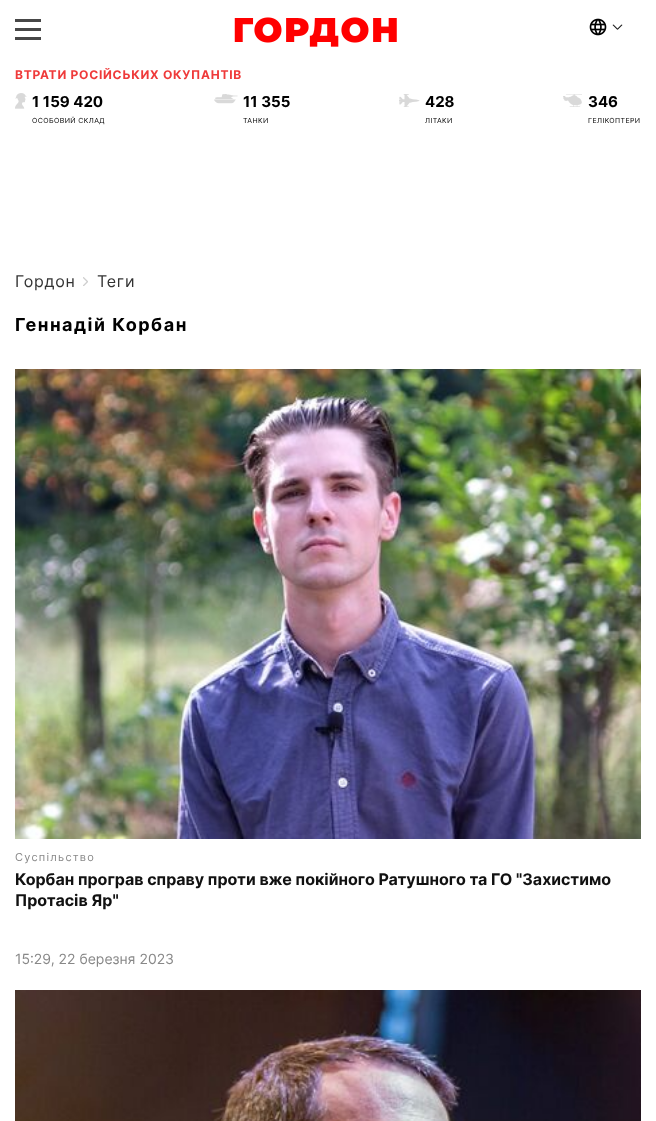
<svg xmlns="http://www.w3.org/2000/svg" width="656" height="1121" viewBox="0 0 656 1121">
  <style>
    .t1 { font: bold 12px Inter; letter-spacing: 0.75px; fill: #ef3a3a; }
    .t2 { font: bold 15px Inter; fill: #000; }
    .t3 { font: 7px Inter; letter-spacing: 0.4px; fill: #000; }
    .t4 { font: 16px Inter; letter-spacing: 0.75px; fill: #333; }
    .t5 { font: bold 18px Inter; letter-spacing: 1.5px; fill: #000; }
    .t6 { font: 11px Inter; letter-spacing: 1.25px; fill: #888; }
    .t7 { font: bold 16px Inter; fill: #111; }
    .t8 { font: 14px Inter; fill: #888; }
  </style>
  <rect width="100%" height="100%" fill="#fff"/>
  <rect x="15" y="19" width="26" height="3" fill="#474747"/>
  <rect x="15" y="28" width="26" height="3" fill="#474747"/>
  <rect x="15" y="37" width="26" height="3" fill="#474747"/>
  <image x="234" y="17" width="163" height="30" href="images/1.png"/>
  <image x="589" y="18" width="18" height="18" href="images/2.png"/>
  <path d="M622.5 25L617.5 30V28.5L621.5 24.5Z" fill="#1a1a1a"/>
  <path d="M617.5 30L612.5 25L613.5 24.5L617.5 28.5Z" fill="#1a1a1a"/>
  <text x="15" y="79" class="t1">ВТРАТИ РОСІЙСЬКИХ ОКУПАНТІВ</text>
  <image x="15" y="93" width="12" height="16" href="images/3.png"/>
  <text x="32" y="107" class="t2">1 159 420</text>
  <text x="32" y="123" class="t3">ОСОБОВИЙ СКЛАД</text>
  <image x="214" y="94" width="24" height="10" href="images/4.png"/>
  <text x="243" y="107" class="t2">11 355</text>
  <text x="243" y="123" class="t3">ТАНКИ</text>
  <image x="399" y="94" width="21" height="13" href="images/5.png"/>
  <text x="425" y="107" class="t2">428</text>
  <text x="425" y="123" class="t3">ЛІТАКИ</text>
  <image x="563" y="94" width="19" height="13" href="images/6.png"/>
  <text x="588" y="107" class="t2">346</text>
  <text x="588" y="123" class="t3">ГЕЛІКОПТЕРИ</text>
  <text x="15" y="287" class="t4">Гордон</text>
  <image x="83" y="277" width="5" height="9" href="images/7.png"/>
  <text x="97" y="287" class="t4">Теги</text>
  <text x="15" y="331" class="t5">Геннадій Корбан</text>
  <image x="15" y="369" width="626" height="470" href="images/8.png"/>
  <text x="15" y="861" class="t6">Суспільство</text>
  <text x="15" y="885" class="t7">Корбан програв справу проти вже покійного Ратушного та ГО "Захистимо</text>
  <text x="15" y="906" class="t7">Протасів Яр"</text>
  <text x="15" y="964" class="t8">15:29, 22 березня 2023</text>
  <image x="15" y="990" width="626" height="131" href="images/9.png"/>
</svg>
